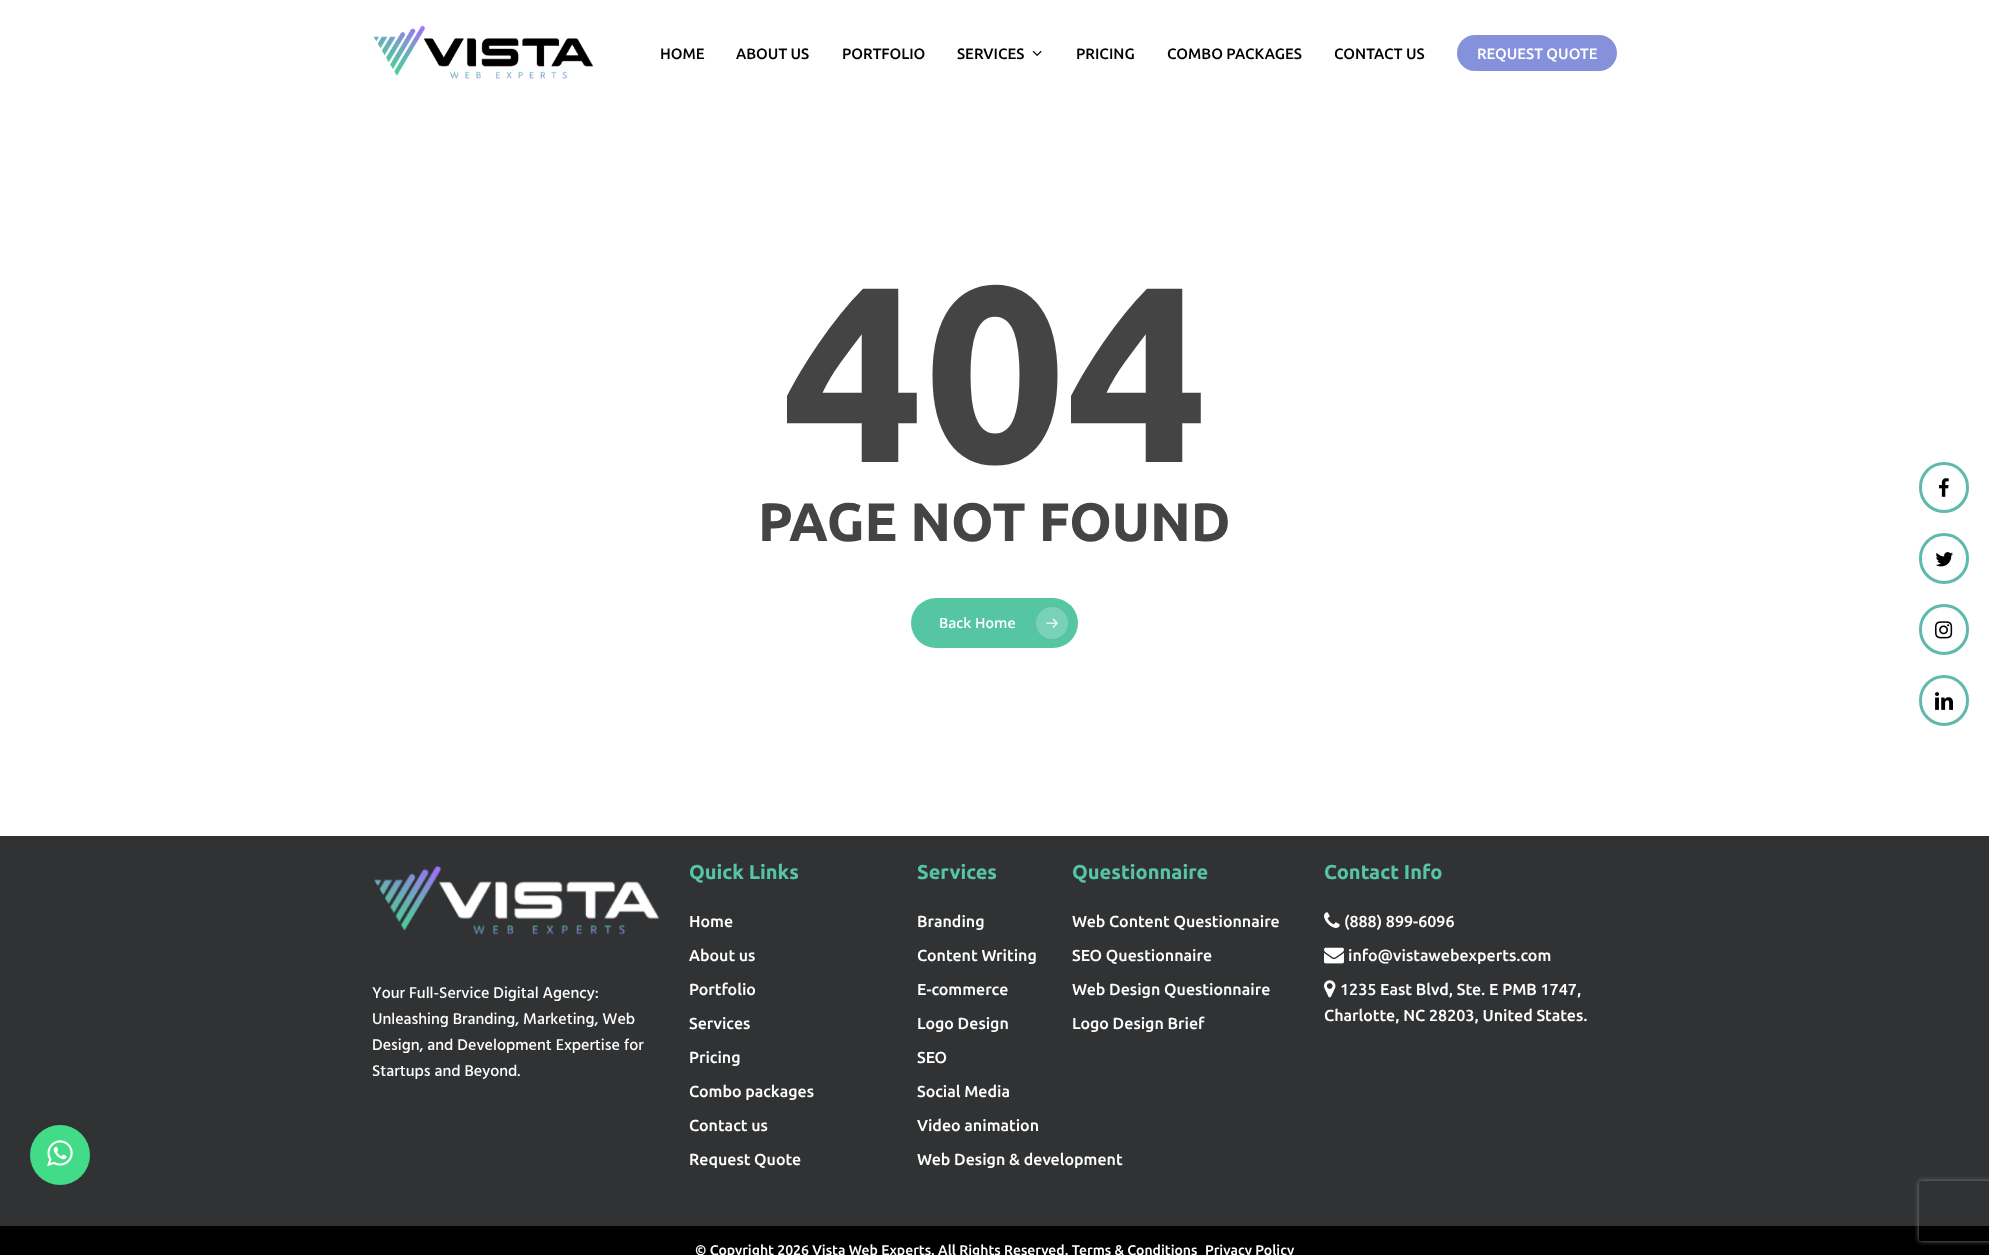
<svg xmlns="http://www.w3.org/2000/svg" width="1989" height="1255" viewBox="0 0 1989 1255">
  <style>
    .t1 { font: 500 15px Ubuntu; fill: #000; }
    .t2 { font: 500 15px Ubuntu; fill: #fff; }
    .t3 { font: bold 250px Ubuntu; fill: #444; }
    .t4 { font: bold 54px Ubuntu; fill: #444; }
    .t5 { font: 600 14px Open Sans; fill: #fff; }
    .t6 { font: 500 16px Hind; fill: #fff; }
    .t7 { font: bold 20px Ubuntu; fill: #55c5a2; }
    .t8 { font: 500 16px Ubuntu; fill: #fff; }
    .t9 { font: 500 14px Ubuntu; fill: #fff; }
  </style>
  <defs>
    <clipPath id="clip1"><path d="M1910 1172H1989V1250H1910ZM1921 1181H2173C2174 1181 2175 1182 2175 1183V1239C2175 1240 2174 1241 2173 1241H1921C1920 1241 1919 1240 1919 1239V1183C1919 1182 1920 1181 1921 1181Z" clip-rule="evenodd"/></clipPath>
  </defs>
  <rect width="100%" height="100%" fill="#fff"/>
  <image x="373" y="25" width="220" height="54" href="images/1.png"/>
  <text x="660" y="59" class="t1">HOME</text>
  <text x="736" y="59" class="t1">ABOUT US</text>
  <text x="842" y="59" class="t1">PORTFOLIO</text>
  <text x="957" y="59" class="t1">SERVICES</text>
  <image x="1032" y="50" width="10" height="6" href="images/2.png"/>
  <text x="1076" y="59" class="t1">PRICING</text>
  <text x="1167" y="59" class="t1">COMBO PACKAGES</text>
  <text x="1334" y="59" class="t1">CONTACT US</text>
  <rect x="1457" y="35" width="160" height="36" rx="18" fill="#8591da"/>
  <text x="1477" y="59" class="t2">REQUEST QUOTE</text>
  <text x="782" y="462" class="t3">404</text>
  <text x="758" y="541" class="t4">PAGE NOT FOUND</text>
  <rect x="911" y="598" width="167" height="50" rx="25" fill="#55c5a2"/>
  <text x="939" y="628" class="t5">Back Home</text>
  <circle cx="1052" cy="623" r="16" fill="#7ad2b6"/>
  <image x="1046" y="618" width="12" height="10" href="images/3.png"/>
  <rect x="1920.5" y="463.5" width="47" height="48" rx="23.5" fill="none" stroke="#5ebaad" stroke-width="3"/>
  <image x="1939" y="478" width="10" height="19" href="images/4.png"/>
  <rect x="1920.5" y="534.5" width="47" height="48" rx="23.5" fill="none" stroke="#5ebaad" stroke-width="3"/>
  <image x="1935" y="552" width="18" height="15" href="images/5.png"/>
  <rect x="1920.5" y="605.5" width="47" height="48" rx="23.5" fill="none" stroke="#5ebaad" stroke-width="3"/>
  <image x="1935" y="621" width="18" height="18" href="images/6.png"/>
  <rect x="1920.5" y="676.5" width="47" height="48" rx="23.5" fill="none" stroke="#5ebaad" stroke-width="3"/>
  <image x="1935" y="692" width="18" height="18" href="images/7.png"/>
  <rect x="0" y="836" width="1989" height="390" fill="#313233"/>
  <circle cx="60" cy="1155" r="30" fill="#42db87"/>
  <image x="47" y="1140" width="26" height="27" href="images/8.png"/>
  <image x="374" y="865" width="286" height="70" href="images/9.png"/>
  <text x="372" y="998" class="t6">Your Full-Service Digital Agency:</text>
  <text x="372" y="1024" class="t6">Unleashing Branding, Marketing, Web</text>
  <text x="372" y="1050" class="t6">Design, and Development Expertise for</text>
  <text x="372" y="1076" class="t6">Startups and Beyond.</text>
  <text x="689" y="879" class="t7">Quick Links</text>
  <text x="689" y="927" class="t8">Home</text>
  <text x="689" y="961" class="t8">About us</text>
  <text x="689" y="995" class="t8">Portfolio</text>
  <text x="689" y="1029" class="t8">Services</text>
  <text x="689" y="1063" class="t8">Pricing</text>
  <text x="689" y="1097" class="t8">Combo packages</text>
  <text x="689" y="1131" class="t8">Contact us</text>
  <text x="689" y="1165" class="t8">Request Quote</text>
  <text x="917" y="879" class="t7">Services</text>
  <text x="917" y="927" class="t8">Branding</text>
  <text x="917" y="961" class="t8">Content Writing</text>
  <text x="917" y="995" class="t8">E-commerce</text>
  <text x="917" y="1029" class="t8">Logo Design</text>
  <text x="917" y="1063" class="t8">SEO</text>
  <text x="917" y="1097" class="t8">Social Media</text>
  <text x="917" y="1131" class="t8">Video animation</text>
  <text x="917" y="1165" class="t8">Web Design &amp; development</text>
  <text x="1072" y="879" class="t7">Questionnaire</text>
  <text x="1072" y="927" class="t8">Web Content Questionnaire</text>
  <text x="1072" y="961" class="t8">SEO Questionnaire</text>
  <text x="1072" y="995" class="t8">Web Design Questionnaire</text>
  <text x="1072" y="1029" class="t8">Logo Design Brief</text>
  <text x="1324" y="879" class="t7">Contact Info</text>
  <image x="1324" y="912" width="16" height="16" href="images/10.png"/>
  <text x="1344" y="927" class="t8">(888) 899-6096</text>
  <image x="1324" y="947" width="20" height="17" href="images/11.png"/>
  <text x="1348" y="961" class="t8">info@vistawebexperts.com</text>
  <image x="1324" y="980" width="12" height="18" href="images/12.png"/>
  <text x="1340" y="995" class="t8">1235 East Blvd, Ste. E PMB 1747,</text>
  <text x="1324" y="1021" class="t8">Charlotte, NC 28203, United States.</text>
  <rect x="0" y="1226" width="1989" height="29" fill="#000"/>
  <text x="695" y="1255" class="t9">© Copyright 2026 Vista Web Experts. All Rights Reserved. Terms &amp; Conditions</text>
  <text x="1205" y="1255" class="t9">Privacy Policy</text>
  <g clip-path="url(#clip1)">
    <rect x="1919" y="1181" width="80" height="60" rx="2" fill="#808080" filter="blur(2.5px)"/>
  </g>
</svg>
